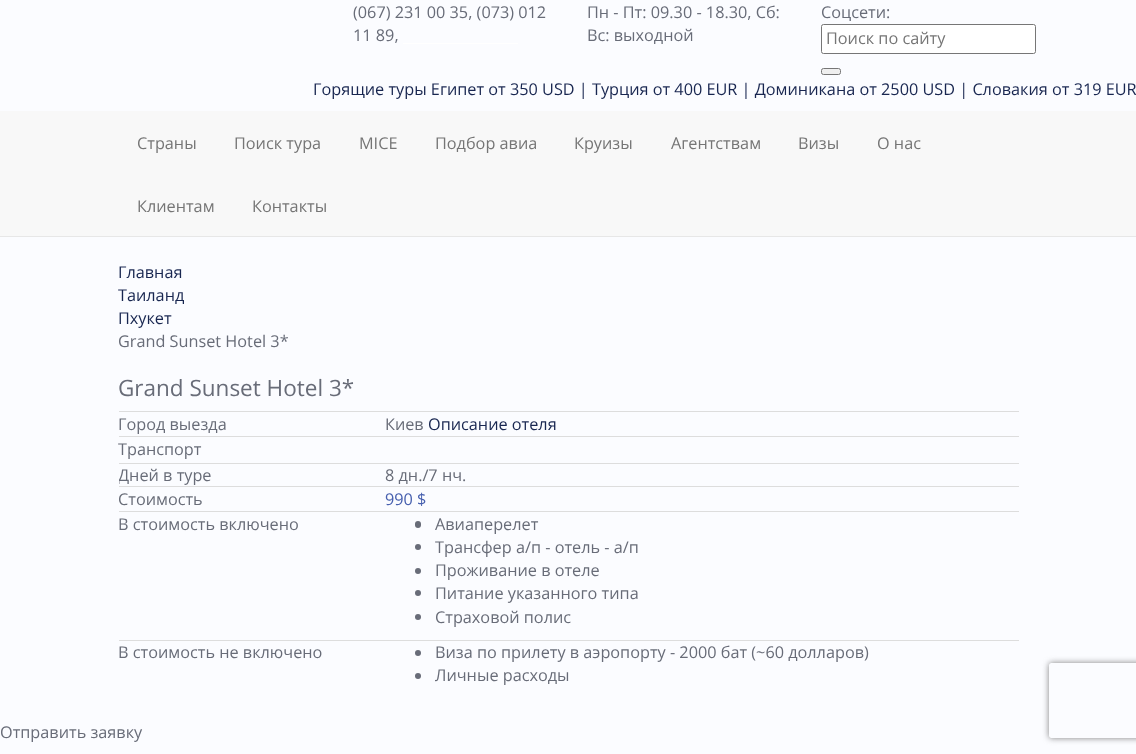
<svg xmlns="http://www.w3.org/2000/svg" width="1136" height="754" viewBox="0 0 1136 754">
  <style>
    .t1 { font: 16.25px Open Sans; fill: #686c78; }
    .t2 { font: 16.25px Open Sans; fill: #757575; }
    .t3 { font: 16.25px Open Sans; fill: #182650; }
    .t4 { font: 22.5px Open Sans; fill: #686c78; }
    .t5 { font: 16.25px Open Sans; fill: #4760af; }
  </style>
  <defs>
    <clipPath id="clip1"><rect x="119" y="411" width="900" height="310"/></clipPath>
    <clipPath id="clip2"><path d="M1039 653H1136V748H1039ZM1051.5 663H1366.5C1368 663 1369 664 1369 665.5V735.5C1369 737 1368 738 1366.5 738H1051.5C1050 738 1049 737 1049 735.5V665.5C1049 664 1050 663 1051.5 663Z" clip-rule="evenodd"/></clipPath>
  </defs>
  <rect width="100%" height="100%" fill="#fbfcff"/>
  <text x="353" y="18" class="t1">(067) 231 00 35, (073) 012</text>
  <text x="353" y="41" class="t1">11 89,</text>
  <rect x="403" y="43" width="115" height="1" fill="#fff"/>
  <text x="587" y="18" class="t1">Пн - Пт: 09.30 - 18.30, Сб:</text>
  <text x="587" y="41" class="t1">Вс: выходной</text>
  <text x="821" y="18" class="t1">Соцсети:</text>
  <rect x="821.5" y="24.5" width="214" height="29" rx="2" fill="#fff" stroke="#767676"/>
  <text x="826" y="44" class="t2">Поиск по сайту</text>
  <rect x="821.5" y="68.5" width="19" height="6" rx="2" fill="#efefef" stroke="#767676"/>
  <text x="313" y="95" class="t3">Горящие туры Египет от 350 USD | Турция от 400 EUR | Доминикана от 2500 USD | Словакия от 319 EUR</text>
  <rect x="0" y="111" width="1136" height="125" fill="#f8f8f8"/>
  <rect x="0" y="236" width="1136" height="1" fill="#e7e7e7"/>
  <text x="137" y="149" class="t2">Страны</text>
  <text x="234" y="149" class="t2">Поиск тура</text>
  <text x="359" y="149" class="t2">MICE</text>
  <text x="435" y="149" class="t2">Подбор авиа</text>
  <text x="574" y="149" class="t2">Круизы</text>
  <text x="671" y="149" class="t2">Агентствам</text>
  <text x="798" y="149" class="t2">Визы</text>
  <text x="877" y="149" class="t2">О нас</text>
  <text x="137" y="212" class="t2">Клиентам</text>
  <text x="252" y="212" class="t2">Контакты</text>
  <text x="118" y="278" class="t3">Главная</text>
  <text x="118" y="301" class="t3">Таиланд</text>
  <text x="118" y="324" class="t3">Пхукет</text>
  <text x="118" y="347" class="t1">Grand Sunset Hotel 3*</text>
  <text x="118" y="396" class="t4">Grand Sunset Hotel 3*</text>
  <text x="118" y="430" class="t1">Город выезда</text>
  <rect x="119" y="411" width="900" height="1" fill="#ddd"/>
  <text x="385" y="430" class="t1">Киев</text>
  <text x="428" y="430" class="t3">Описание отеля</text>
  <rect x="119" y="436" width="900" height="1" fill="#ddd"/>
  <text x="118" y="455" class="t1">Транспорт</text>
  <g clip-path="url(#clip1)">
    <text x="118" y="481" class="t1">Дней в туре</text>
  </g>
  <rect x="119" y="463" width="900" height="1" fill="#ddd"/>
  <text x="385" y="481" class="t1">8 дн./7 нч.</text>
  <text x="118" y="505" class="t1">Стоимость</text>
  <rect x="119" y="486" width="900" height="1" fill="#ddd"/>
  <text x="385" y="505" class="t5">990 $</text>
  <text x="118" y="530" class="t1">В стоимость включено</text>
  <rect x="119" y="511" width="900" height="1" fill="#ddd"/>
  <rect x="415" y="521" width="6" height="7" rx="3" fill="#686c78"/>
  <text x="435" y="530" class="t1">Авиаперелет</text>
  <circle cx="418" cy="547" r="3" fill="#686c78"/>
  <text x="435" y="553" class="t1">Трансфер а/п - отель - а/п</text>
  <circle cx="418" cy="571" r="3" fill="#686c78"/>
  <text x="435" y="576" class="t1">Проживание в отеле</text>
  <circle cx="418" cy="593" r="3" fill="#686c78"/>
  <text x="435" y="599" class="t1">Питание указанного типа</text>
  <circle cx="418" cy="617" r="3" fill="#686c78"/>
  <text x="435" y="623" class="t1">Страховой полис</text>
  <text x="118" y="658" class="t1">В стоимость не включено</text>
  <rect x="119" y="640" width="900" height="1" fill="#ddd"/>
  <circle cx="418" cy="653" r="3" fill="#686c78"/>
  <text x="435" y="658" class="t1">Виза по прилету в аэропорту - 2000 бат (~60 долларов)</text>
  <circle cx="418" cy="676" r="3" fill="#686c78"/>
  <text x="435" y="681" class="t1">Личные расходы</text>
  <text x="0" y="738" class="t1">Отправить заявку</text>
  <g clip-path="url(#clip2)">
    <rect x="1049" y="663" width="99" height="75" rx="2.5" fill="#808080" filter="blur(3px)"/>
  </g>
</svg>
